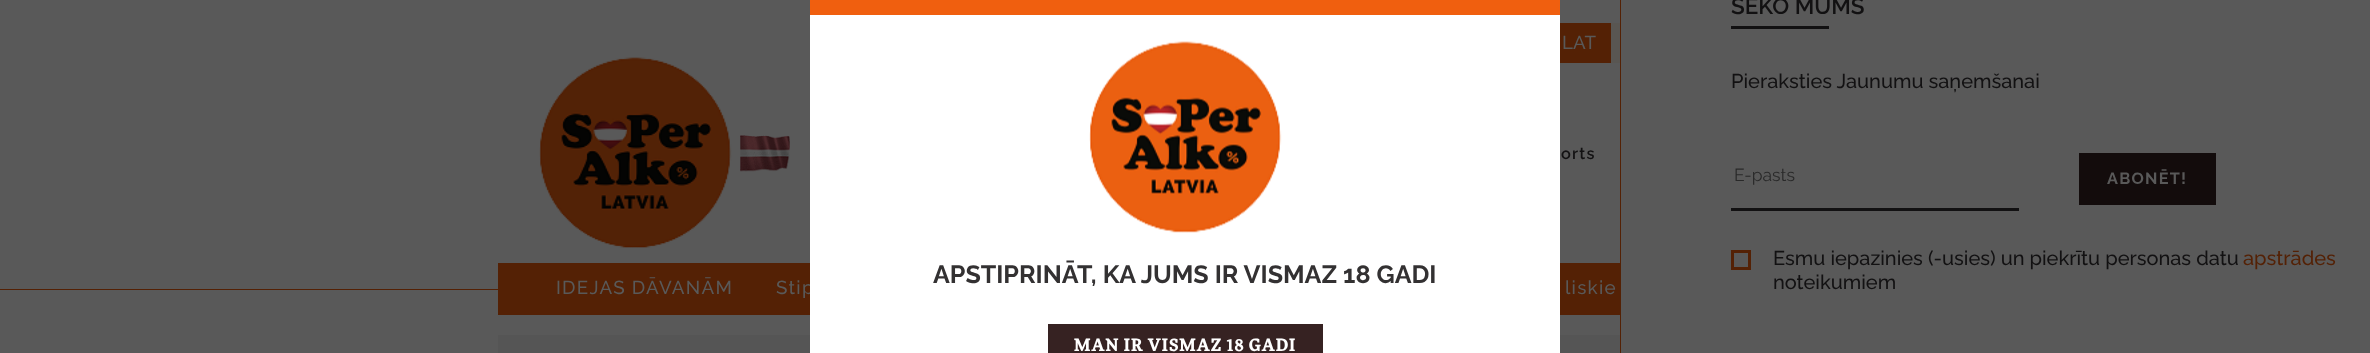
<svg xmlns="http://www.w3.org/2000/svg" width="2370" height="353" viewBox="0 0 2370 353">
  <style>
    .t1 { font: 500 18.75px Raleway; fill: #595959; }
    .t2 { font: 600 16.25px Raleway; letter-spacing: 1.25px; fill: #121112; }
    .t3 { font: 500 18.75px Raleway; letter-spacing: 1.25px; fill: #595959; }
    .t4 { font: 600 22.5px Raleway; fill: #121112; }
    .t5 { font: 500 20px Raleway; fill: #121112; }
    .t6 { font: 17.5px Raleway; fill: #292929; }
    .t7 { font: bold 16.25px Raleway; letter-spacing: 1.25px; fill: #595959; }
    .t8 { font: 500 20px Raleway; fill: #542105; }
    .t9 { font: bold 25px Raleway; fill: #333132; }
    .t10 { font: bold 16.25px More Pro; letter-spacing: 1.25px; fill: #fff; }
  </style>
  <rect width="100%" height="100%" fill="#595959"/>
  <rect x="1560" y="23" width="51" height="40" fill="#542105"/>
  <text x="1562" y="49" class="t1">LAT</text>
  <rect x="1611" y="23" width="9" height="40" fill="#595652"/>
  <image x="539" y="57" width="193" height="191" href="images/1.png"/>
  <image x="740" y="135" width="50" height="37" href="images/2.png"/>
  <text x="1561" y="159" class="t2">orts</text>
  <rect x="-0.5" y="289.5" width="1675" height="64" fill="none" stroke="#542105"/>
  <rect x="498" y="263" width="1122" height="52" fill="#542105"/>
  <text x="556" y="294" class="t3">IDEJAS DĀVANĀM</text>
  <text x="776" y="294" class="t3">Stip</text>
  <text x="1565" y="294" class="t3">liskie</text>
  <rect x="1621" y="289" width="54" height="64" fill="#595959"/>
  <rect x="1620" y="0" width="1" height="353" fill="#542105"/>
  <text x="1731" y="14" class="t4">SEKO MUMS</text>
  <rect x="1731" y="26" width="98" height="3" fill="#121112"/>
  <text x="1731" y="88" class="t5">Pieraksties Jaunumu saņemšanai</text>
  <rect x="1731" y="208" width="288" height="3" fill="#121112"/>
  <text x="1734" y="181" class="t6">E-pasts</text>
  <rect x="2079" y="153" width="137" height="52" fill="#130c0c"/>
  <text x="2107" y="184" class="t7">ABONĒT!</text>
  <rect x="1732.5" y="251.5" width="17" height="17" fill="none" stroke="#542105" stroke-width="3"/>
  <text x="1773" y="265" class="t5">Esmu iepazinies (-usies) un piekrītu personas datu</text>
  <text x="2243" y="265" class="t8">apstrādes</text>
  <text x="1773" y="289" class="t5">noteikumiem</text>
  <rect x="810" y="15" width="750" height="338" fill="#fff"/>
  <rect x="810" y="0" width="750" height="15" fill="#f05f0f"/>
  <image x="1089" y="41" width="193" height="192" href="images/3.png"/>
  <text x="933" y="283" class="t9">APSTIPRINĀT, KA JUMS IR VISMAZ 18 GADI</text>
  <rect x="1048" y="324" width="275" height="29" fill="#362222"/>
  <text x="1074" y="351" class="t10">MAN IR VISMAZ 18 GADI</text>
  <rect x="498" y="335" width="312" height="18" fill="#555"/>
  <rect x="1560" y="335" width="60" height="18" fill="#555"/>
</svg>
